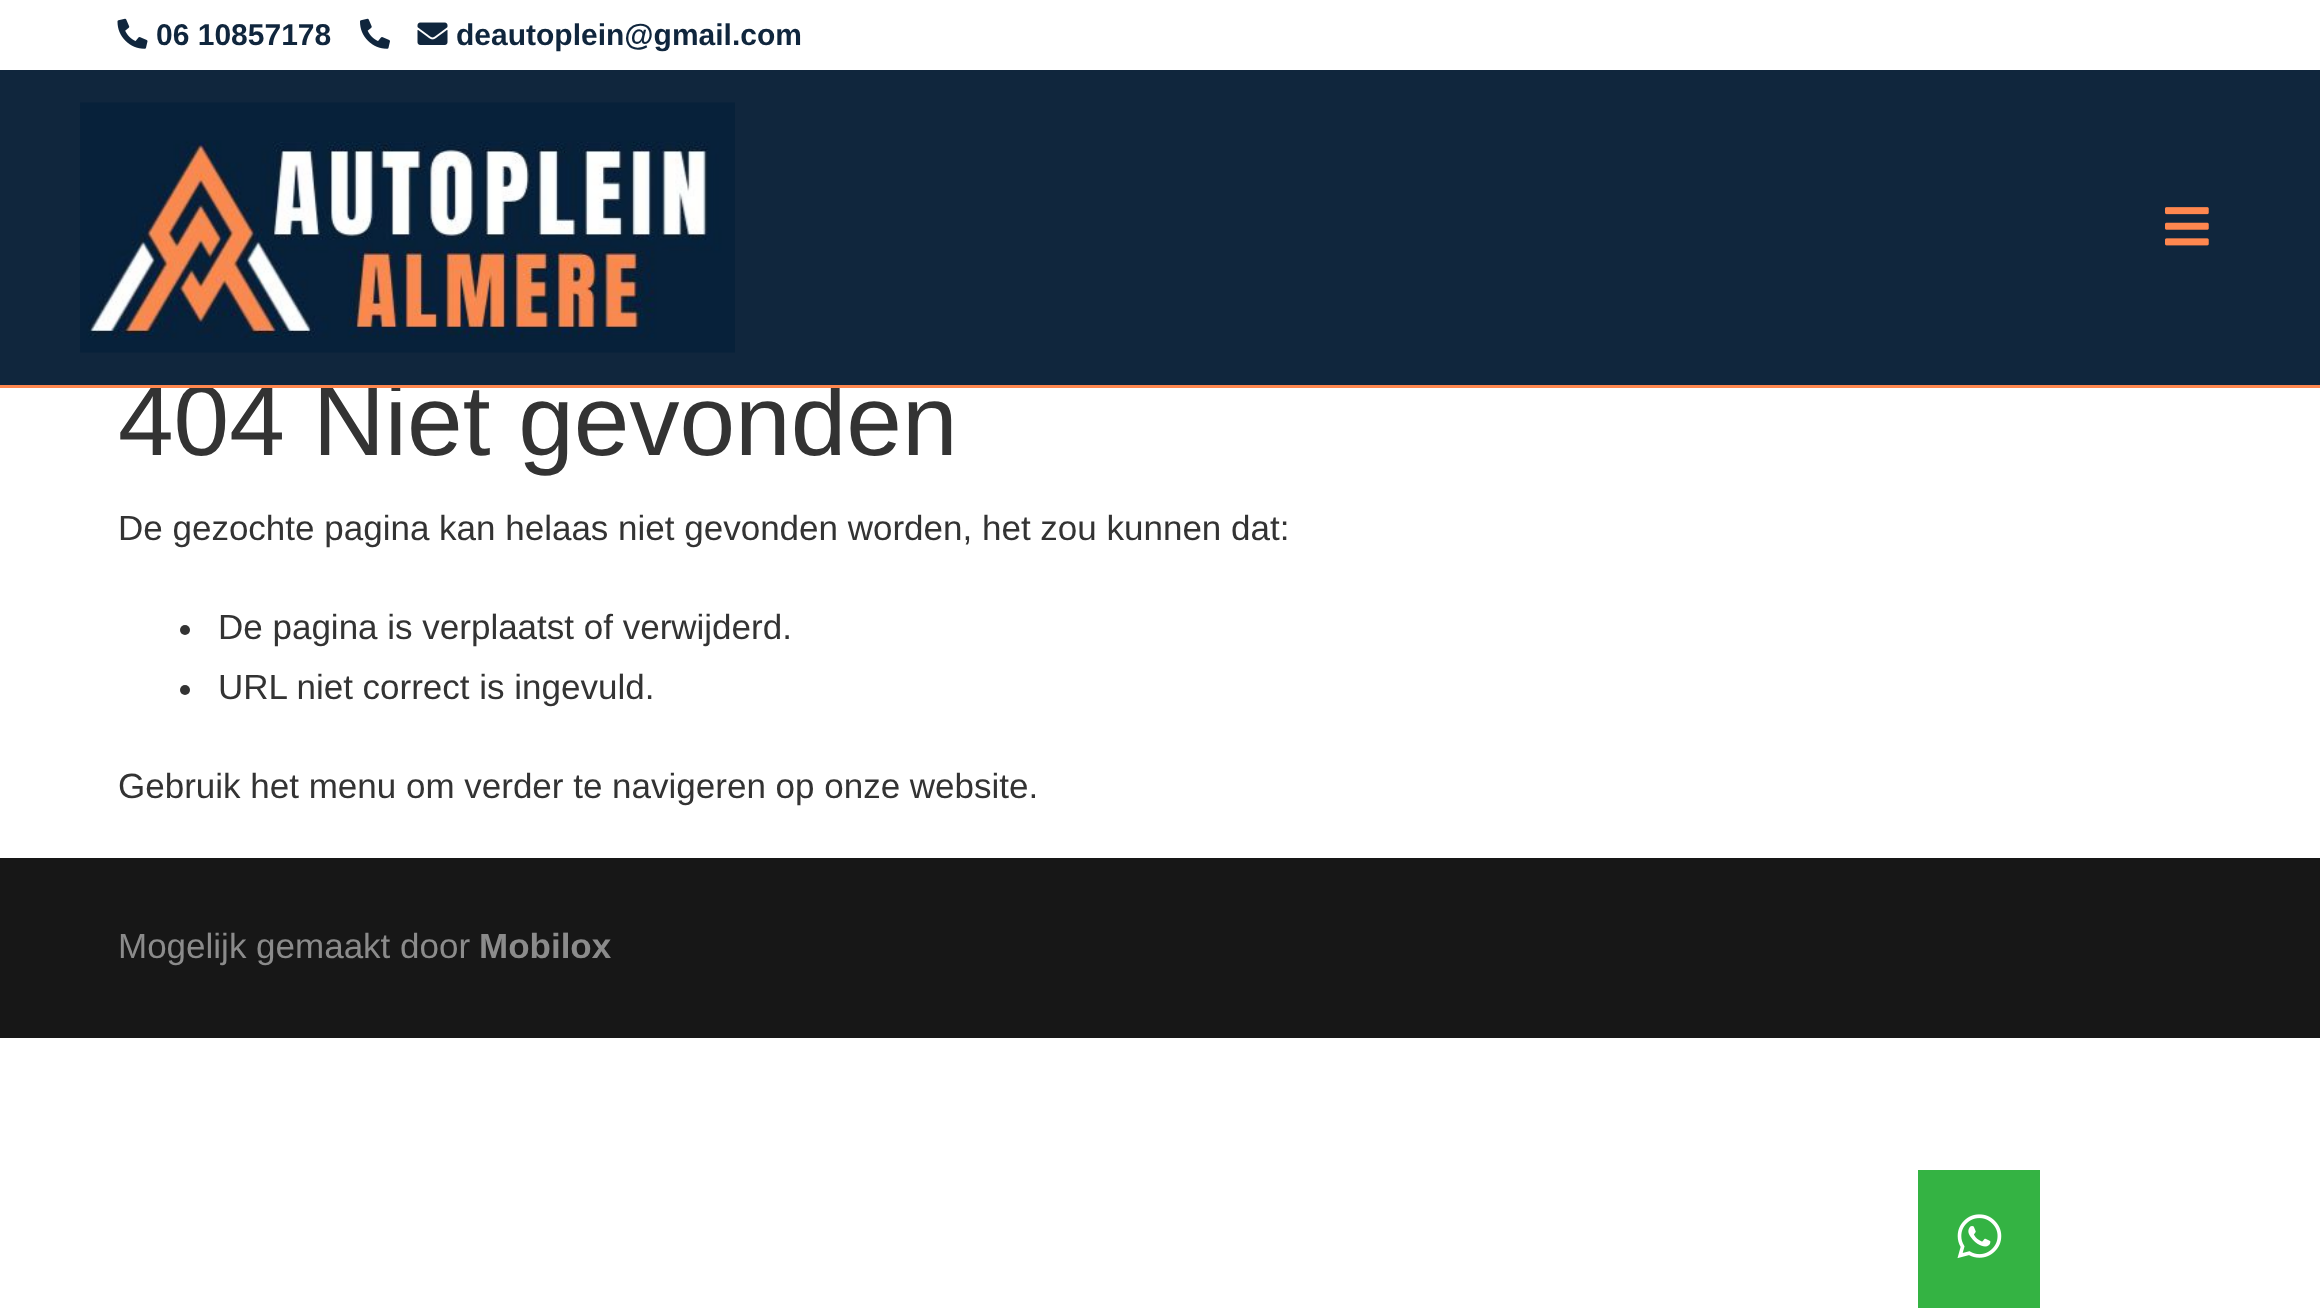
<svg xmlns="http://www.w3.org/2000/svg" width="2320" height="1308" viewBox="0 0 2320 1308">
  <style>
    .t1 { font: bold 30px Liberation Sans; fill: #10263d; }
    .t2 { font: 100px Liberation Sans; fill: #333; }
    .t3 { font: 35px Liberation Sans; fill: #333; }
    .t4 { font: 35px Liberation Sans; fill: #8b8b8b; }
    .t5 { font: bold 35px Liberation Sans; fill: #8b8b8b; }
  </style>
  <rect width="100%" height="100%" fill="#fff"/>
  <image x="117" y="18" width="31" height="31" href="images/1.png"/>
  <text x="156" y="45" class="t1">06 10857178</text>
  <image x="360" y="18" width="30" height="31" href="images/2.png"/>
  <image x="417" y="22" width="31" height="23" href="images/3.png"/>
  <text x="456" y="45" class="t1">deautoplein@gmail.com</text>
  <text x="118" y="455" class="t2">404 Niet gevonden</text>
  <rect x="0" y="70" width="2320" height="315" fill="#10263d"/>
  <rect x="0" y="385" width="2320" height="3" fill="#ff874f"/>
  <image x="80" y="102" width="655" height="251" href="images/4.png"/>
  <image x="2165" y="207" width="44" height="39" href="images/5.png"/>
  <text x="118" y="540" class="t3">De gezochte pagina kan helaas niet gevonden worden, het zou kunnen dat:</text>
  <circle cx="185" cy="630" r="5" fill="#333"/>
  <text x="218" y="639" class="t3">De pagina is verplaatst of verwijderd.</text>
  <circle cx="185" cy="690" r="5" fill="#333"/>
  <text x="218" y="699" class="t3">URL niet correct is ingevuld.</text>
  <text x="118" y="798" class="t3">Gebruik het menu om verder te navigeren op onze website.</text>
  <rect x="0" y="858" width="2320" height="180" fill="#171717"/>
  <text x="118" y="958" class="t4">Mogelijk gemaakt door</text>
  <text x="479" y="958" class="t5">Mobilox</text>
  <rect x="1918" y="1170" width="122" height="138" fill="#34b343"/>
  <image x="1957" y="1214" width="45" height="45" href="images/6.png"/>
</svg>
